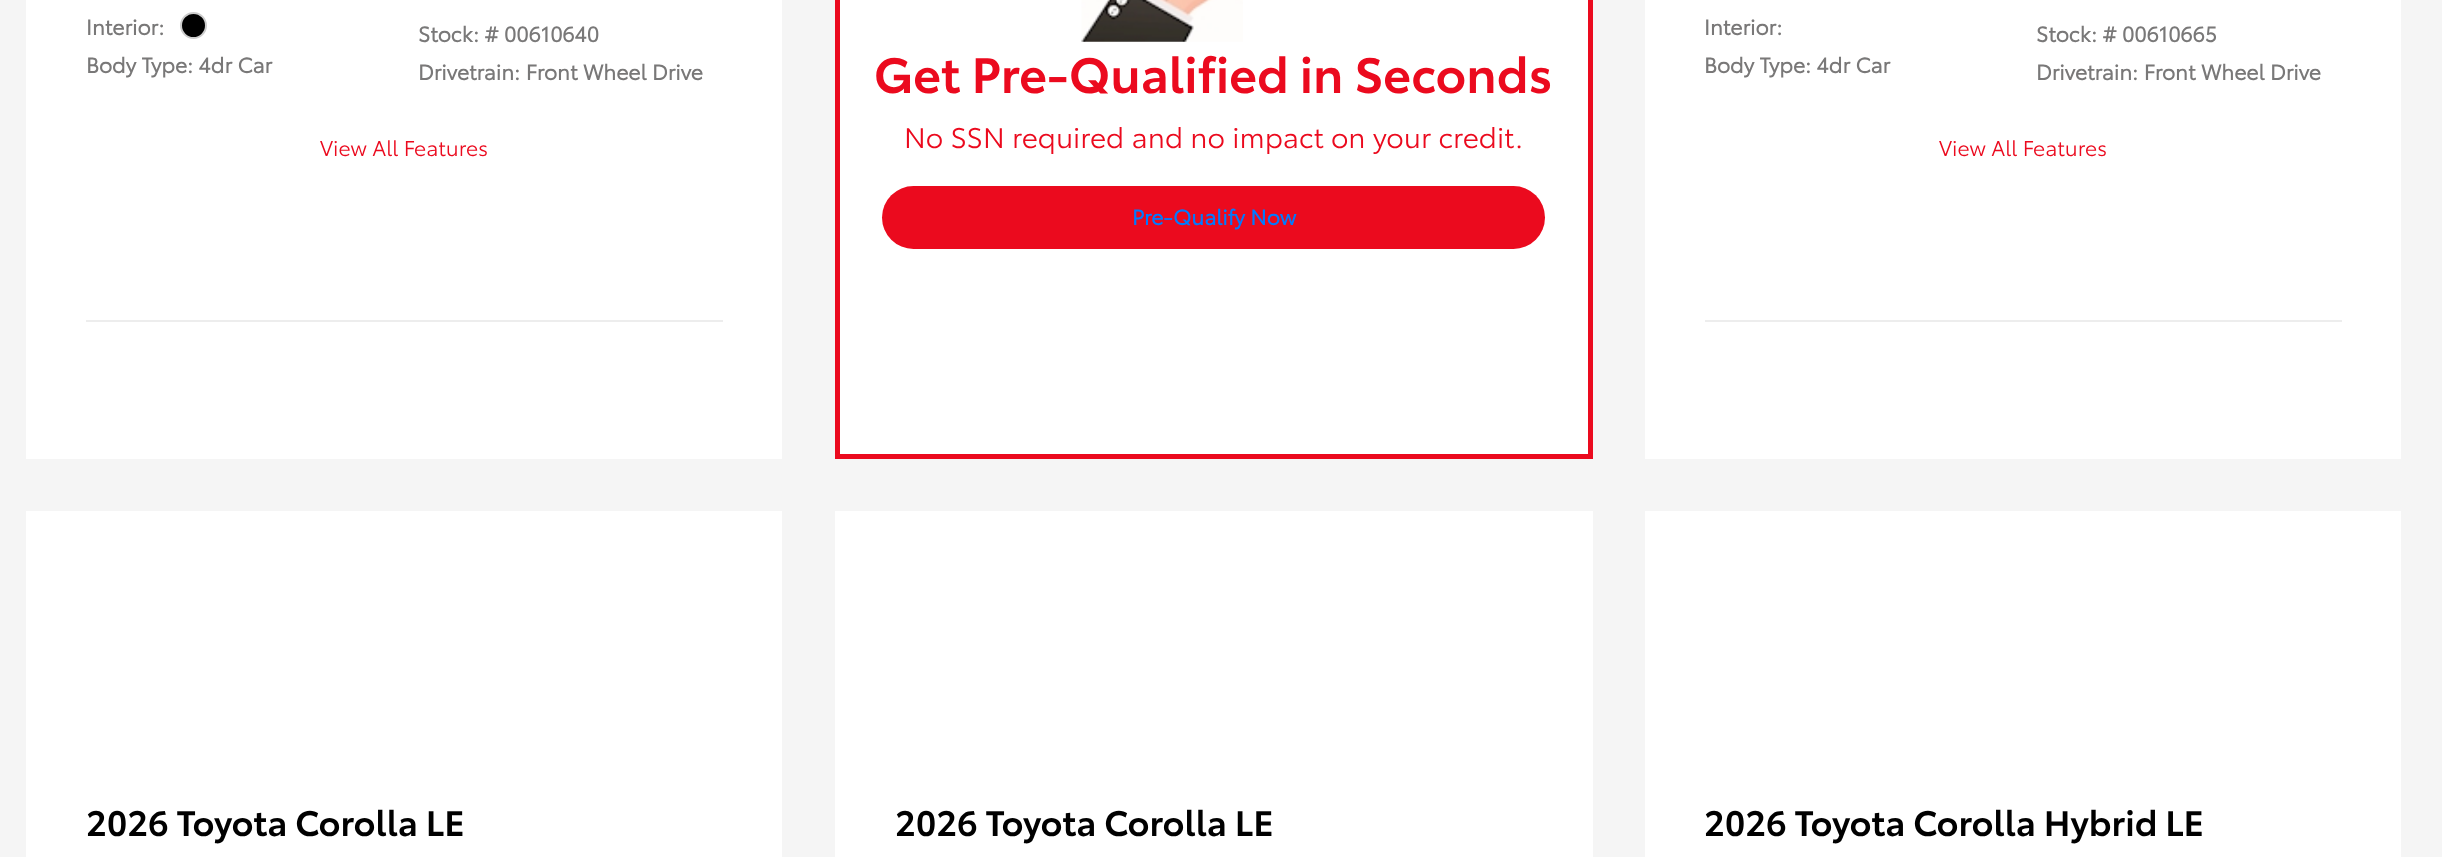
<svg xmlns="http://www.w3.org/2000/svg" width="2442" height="857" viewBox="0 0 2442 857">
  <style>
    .t1 { font: bold 21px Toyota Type; fill: #797878; }
    .t2 { font: 21px Toyota Type; fill: #eb0a1e; }
    .t3 { font: 600 49px Toyota Type; fill: #eb0a1e; }
    .t4 { font: 28px Toyota Type; fill: #eb0a1e; }
    .t5 { font: bold 21px Toyota Type; fill: #007bff; }
    .t6 { font: 600 35px Toyota Type; fill: #000; }
  </style>
  <rect width="100%" height="100%" fill="#f5f5f5"/>
  <rect x="26" y="0" width="756" height="459" fill="#fff"/>
  <text x="86" y="35" class="t1">Interior:</text>
  <circle cx="193.5" cy="25.5" r="12.5" fill="#000" stroke="#ccc" stroke-width="2"/>
  <text x="86" y="73" class="t1">Body Type: 4dr Car</text>
  <text x="418" y="42" class="t1">Stock: # 00610640</text>
  <text x="418" y="80" class="t1">Drivetrain: Front Wheel Drive</text>
  <text x="320" y="156" class="t2">View All Features</text>
  <rect x="86" y="320" width="637" height="2" fill="#ededed"/>
  <rect x="837.5" y="-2.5" width="753" height="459" fill="#fff" stroke="#eb0a1e" stroke-width="5"/>
  <image x="1081" y="0" width="162" height="42" href="images/1.png"/>
  <text x="874" y="93" class="t3">Get Pre-Qualified in Seconds</text>
  <text x="904" y="148" class="t4">No SSN required and no impact on your credit.</text>
  <rect x="882" y="186" width="663" height="63" rx="31.5" fill="#eb0a1e"/>
  <text x="1132" y="225" class="t5">Pre-Qualify Now</text>
  <rect x="1645" y="0" width="756" height="459" fill="#fff"/>
  <text x="1704" y="35" class="t1">Interior:</text>
  <text x="1704" y="73" class="t1">Body Type: 4dr Car</text>
  <text x="2036" y="42" class="t1">Stock: # 00610665</text>
  <text x="2036" y="80" class="t1">Drivetrain: Front Wheel Drive</text>
  <text x="1939" y="156" class="t2">View All Features</text>
  <rect x="1705" y="320" width="637" height="2" fill="#ededed"/>
  <rect x="26" y="511" width="756" height="346" fill="#fff"/>
  <text x="86" y="836" class="t6">2026 Toyota Corolla LE</text>
  <rect x="835" y="511" width="758" height="346" fill="#fff"/>
  <text x="895" y="836" class="t6">2026 Toyota Corolla LE</text>
  <rect x="1645" y="511" width="756" height="346" fill="#fff"/>
  <text x="1704" y="836" class="t6">2026 Toyota Corolla Hybrid LE</text>
</svg>
